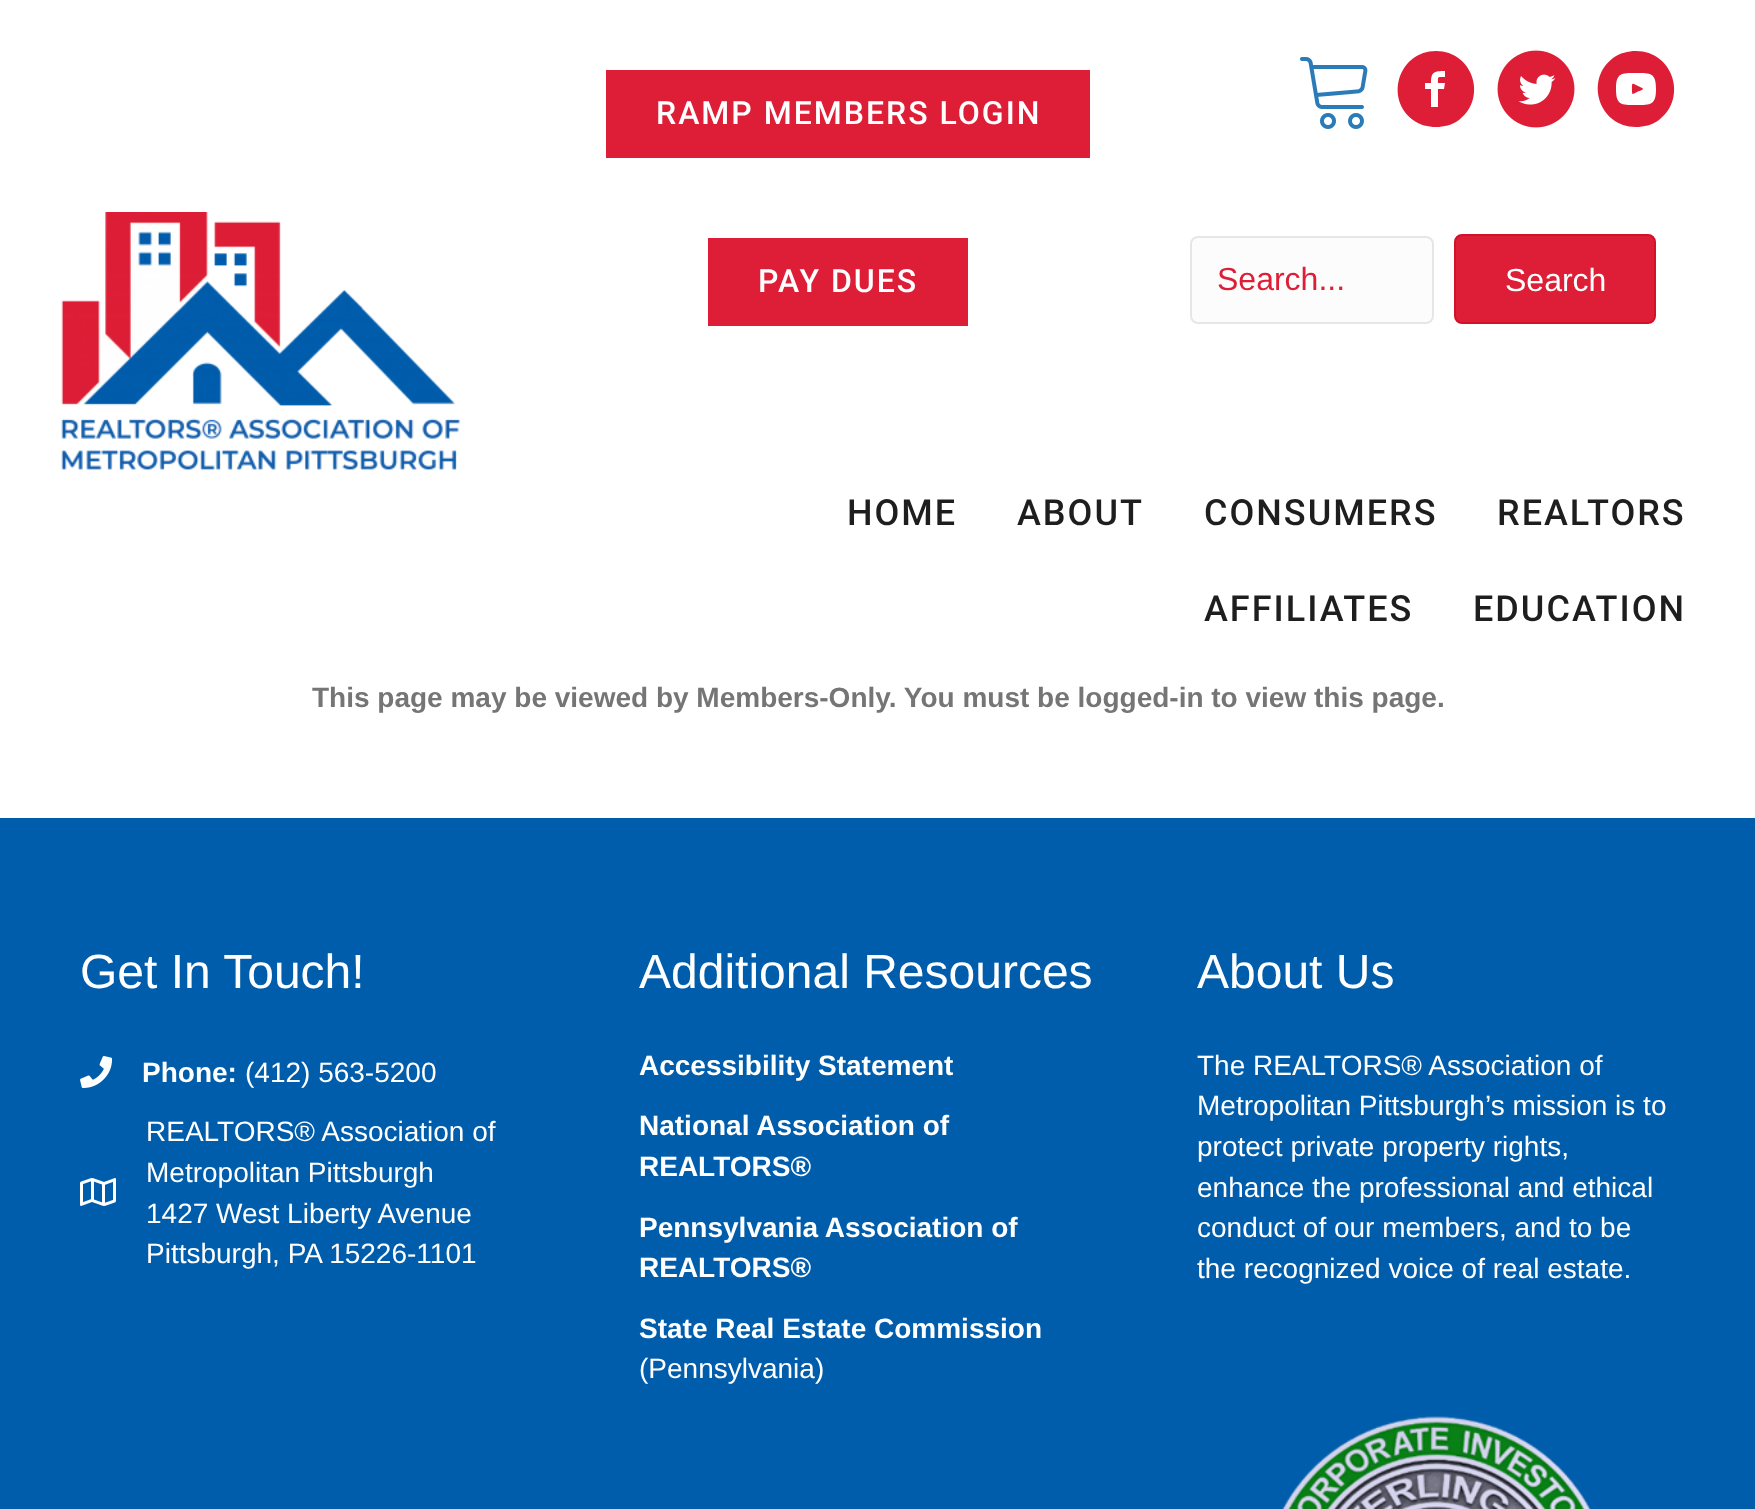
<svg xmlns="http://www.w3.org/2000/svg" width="1755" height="1509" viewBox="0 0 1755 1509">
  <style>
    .t1 { font: 500 32px Roboto; letter-spacing: 2px; fill: #fff; }
    .t2 { font: 32px Liberation Sans; fill: #dd1e36; }
    .t3 { font: 32px Liberation Sans; fill: #fff; }
    .t4 { font: 500 36px Roboto; letter-spacing: 2px; fill: #1e1e1e; }
    .t5 { font: bold 28px Liberation Sans; fill: #757575; }
    .t6 { font: 48px Liberation Sans; fill: #fff; }
    .t7 { font: bold 28px Liberation Sans; fill: #fff; }
    .t8 { font: 28px Liberation Sans; fill: #fff; }
  </style>
  <rect width="100%" height="100%" fill="#fff"/>
  <image x="61" y="212" width="399" height="258" href="images/1.png"/>
  <rect x="606" y="70" width="484" height="88" fill="#dd1e36"/>
  <text x="656" y="124" class="t1">RAMP MEMBERS LOGIN</text>
  <rect x="708" y="238" width="260" height="88" fill="#dd1e36"/>
  <text x="758" y="292" class="t1">PAY DUES</text>
  <image x="1300" y="57" width="68" height="72" href="images/2.png"/>
  <path d="M1436 51C1399 51 1384 98 1413 120C1420 125 1428 127 1436 127C1444 127 1452 125 1459 120C1488 98 1473 51 1436 51ZM1445 77C1437 77 1438 76 1438 83H1445L1444 89H1438V107H1431V89H1425V83H1431C1431 72 1434 71 1445 71Z" fill="#dd1e36"/>
  <image x="1497" y="50" width="78" height="78" href="images/3.png"/>
  <path d="M1642 88C1631 83 1632 81 1632 91C1632 92 1632 94 1633 94L1639 91C1640 91 1645 89 1642 88ZM1636 51C1628 51 1620 53 1613 58C1584 80 1599 127 1636 127C1644 127 1652 125 1659 120C1688 98 1673 51 1636 51ZM1636 105C1621 105 1616 105 1616 89C1616 73 1621 73 1636 73C1651 73 1656 73 1656 89C1656 105 1651 105 1636 105Z" fill="#dd1e36"/>
  <rect x="1191" y="237" width="242" height="86" rx="7" fill="#fcfcfc" stroke="#e6e6e6" stroke-width="2"/>
  <text x="1217" y="290" class="t2">Search...</text>
  <rect x="1455" y="235" width="200" height="88" rx="7" fill="#dd1e36" stroke="#d1122a" stroke-width="2"/>
  <text x="1505" y="291" class="t3">Search</text>
  <text x="847" y="525" class="t4">HOME</text>
  <text x="1017" y="525" class="t4">ABOUT</text>
  <text x="1204" y="525" class="t4">CONSUMERS</text>
  <text x="1497" y="525" class="t4">REALTORS</text>
  <text x="1204" y="621" class="t4">AFFILIATES</text>
  <text x="1473" y="621" class="t4">EDUCATION</text>
  <text x="312" y="707" class="t5">This page may be viewed by Members-Only. You must be logged-in to view this page.</text>
  <rect x="0" y="818" width="1755" height="691" fill="#005dac"/>
  <text x="80" y="988" class="t6">Get In Touch!</text>
  <image x="80" y="1056" width="33" height="32" href="images/4.png"/>
  <text x="142" y="1082" class="t7">Phone:</text>
  <text x="245" y="1082" class="t8">(412) 563-5200</text>
  <image x="80" y="1178" width="36" height="28" href="images/5.png"/>
  <text x="146" y="1141" class="t8">REALTORS® Association of</text>
  <text x="146" y="1182" class="t8">Metropolitan Pittsburgh</text>
  <text x="146" y="1223" class="t8">1427 West Liberty Avenue</text>
  <text x="146" y="1263" class="t8">Pittsburgh, PA 15226-1101</text>
  <text x="639" y="988" class="t6">Additional Resources</text>
  <text x="639" y="1075" class="t7">Accessibility Statement</text>
  <text x="639" y="1135" class="t7">National Association of</text>
  <text x="639" y="1176" class="t7">REALTORS®</text>
  <text x="639" y="1237" class="t7">Pennsylvania Association of</text>
  <text x="639" y="1277" class="t7">REALTORS®</text>
  <text x="639" y="1338" class="t7">State Real Estate Commission</text>
  <text x="639" y="1378" class="t8">(Pennsylvania)</text>
  <text x="1197" y="988" class="t6">About Us</text>
  <text x="1197" y="1075" class="t8">The REALTORS® Association of</text>
  <text x="1197" y="1115" class="t8">Metropolitan Pittsburgh’s mission is to</text>
  <text x="1197" y="1156" class="t8">protect private property rights,</text>
  <text x="1197" y="1197" class="t8">enhance the professional and ethical</text>
  <text x="1197" y="1237" class="t8">conduct of our members, and to be</text>
  <text x="1197" y="1278" class="t8">the recognized voice of real estate.</text>
  <image x="1282" y="1416" width="309" height="93" href="images/6.png"/>
</svg>
